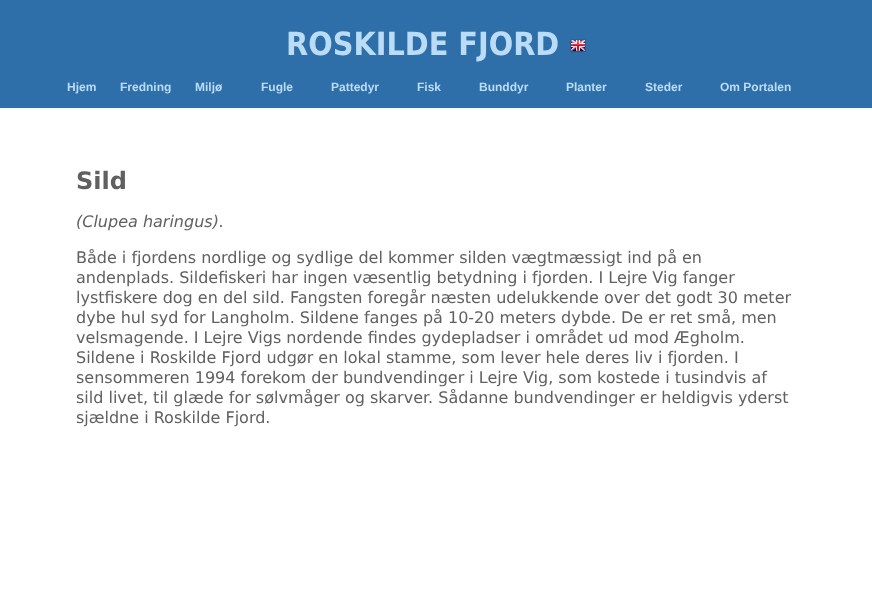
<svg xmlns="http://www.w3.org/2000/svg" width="872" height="597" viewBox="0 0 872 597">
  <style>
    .t1 { font: bold 32px DejaVu Sans; fill: #bbdcf7; }
    .t2 { font: bold 12px Liberation Sans; fill: #bbdcf7; }
    .t3 { font: bold 24px 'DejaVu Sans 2'; fill: #606060; }
    .t4 { font: italic 16px DejaVu Sans; fill: #606060; }
    .t5 { font: 16px DejaVu Sans; fill: #606060; }
  </style>
  <rect width="100%" height="100%" fill="#fff"/>
  <rect x="0" y="0" width="872" height="108" fill="#2e6fa9"/>
  <text x="286" y="55" class="t1">ROSKILDE FJORD</text>
  <image x="570" y="39" width="16" height="14" href="images/1.png"/>
  <text x="67" y="91" class="t2">Hjem</text>
  <text x="120" y="91" class="t2">Fredning</text>
  <text x="195" y="91" class="t2">Miljø</text>
  <text x="261" y="91" class="t2">Fugle</text>
  <text x="331" y="91" class="t2">Pattedyr</text>
  <text x="417" y="91" class="t2">Fisk</text>
  <text x="479" y="91" class="t2">Bunddyr</text>
  <text x="566" y="91" class="t2">Planter</text>
  <text x="645" y="91" class="t2">Steder</text>
  <text x="720" y="91" class="t2">Om Portalen</text>
  <text x="76" y="189" class="t3">Sild</text>
  <text x="76" y="227" class="t4">(Clupea haringus).</text>
  <text x="76" y="263" class="t5">Både i fjordens nordlige og sydlige del kommer silden vægtmæssigt ind på en</text>
  <text x="76" y="283" class="t5">andenplads. Sildefiskeri har ingen væsentlig betydning i fjorden. I Lejre Vig fanger</text>
  <text x="76" y="303" class="t5">lystfiskere dog en del sild. Fangsten foregår næsten udelukkende over det godt 30 meter</text>
  <text x="76" y="323" class="t5">dybe hul syd for Langholm. Sildene fanges på 10-20 meters dybde. De er ret små, men</text>
  <text x="76" y="343" class="t5">velsmagende. I Lejre Vigs nordende findes gydepladser i området ud mod Ægholm.</text>
  <text x="76" y="363" class="t5">Sildene i Roskilde Fjord udgør en lokal stamme, som lever hele deres liv i fjorden. I</text>
  <text x="76" y="383" class="t5">sensommeren 1994 forekom der bundvendinger i Lejre Vig, som kostede i tusindvis af</text>
  <text x="76" y="403" class="t5">sild livet, til glæde for sølvmåger og skarver. Sådanne bundvendinger er heldigvis yderst</text>
  <text x="76" y="423" class="t5">sjældne i Roskilde Fjord.</text>
</svg>
